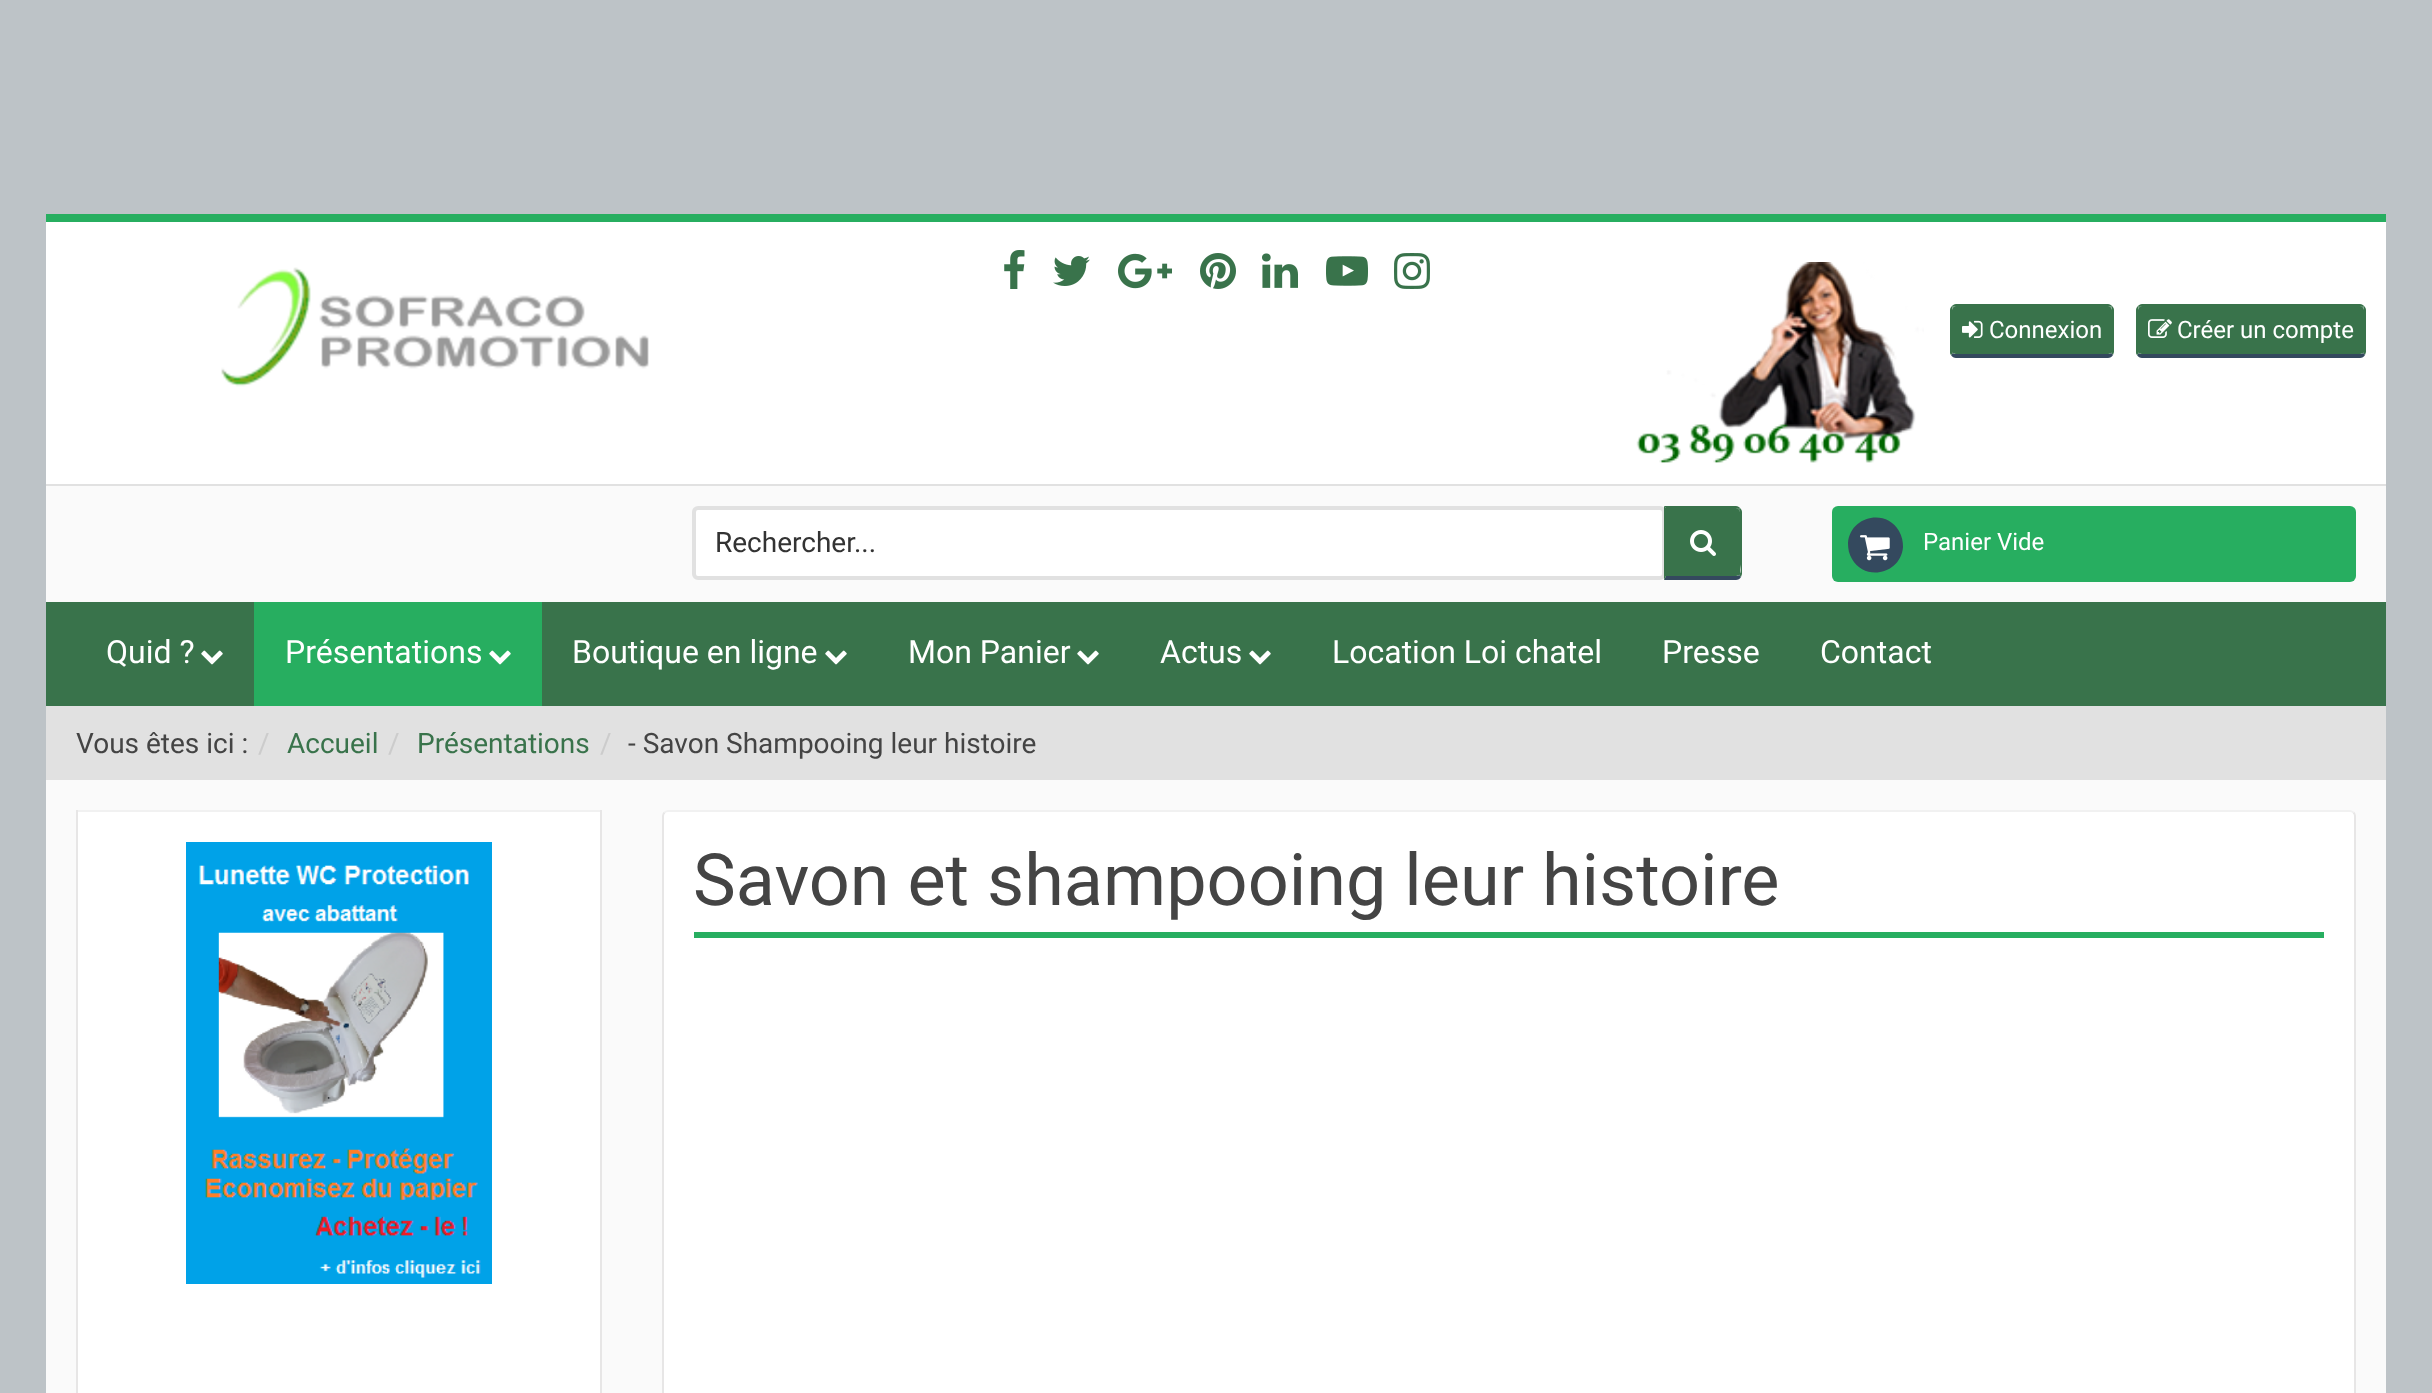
<svg xmlns="http://www.w3.org/2000/svg" width="2432" height="1393" viewBox="0 0 2432 1393">
  <style>
    .t1 { font: 24px Roboto; fill: #fff; }
    .t2 { font: 28px Roboto; fill: #333; }
    .t3 { font: 32px Roboto; fill: #fff; }
    .t4 { font: 28px Roboto; fill: #444; }
    .t5 { font: 28px Roboto; fill: #ccc; }
    .t6 { font: 28px Roboto; fill: #39734b; }
    .t7 { font: 72px Roboto; fill: #444; }
  </style>
  <rect width="100%" height="100%" fill="#bdc3c7"/>
  <rect x="46" y="486" width="2340" height="907" fill="#fafafa"/>
  <rect x="46" y="214" width="2340" height="8" fill="#27ae60"/>
  <rect x="46" y="222" width="2340" height="262" fill="#fff"/>
  <rect x="46" y="484" width="2340" height="2" fill="#e1e1e1"/>
  <image x="221" y="267" width="428" height="120" href="images/1.png"/>
  <image x="1004" y="250" width="21" height="39" href="images/2.png"/>
  <image x="1053" y="256" width="37" height="30" href="images/3.png"/>
  <image x="1118" y="253" width="54" height="36" href="images/4.png"/>
  <image x="1200" y="253" width="36" height="36" href="images/5.png"/>
  <image x="1262" y="253" width="36" height="35" href="images/6.png"/>
  <image x="1326" y="256" width="42" height="30" href="images/7.png"/>
  <image x="1394" y="253" width="36" height="36" href="images/8.png"/>
  <image x="1636" y="262" width="288" height="201" href="images/9.png"/>
  <path d="M1956 306H2108C2110 306 2112 308 2112 310V352C2112 353 2110 354 2108 354H1956C1954 354 1952 353 1952 352V310C1952 308 1954 306 1956 306Z" fill="#39734b"/>
  <path d="M1956 304C1954 304 1953 305 1952 306L1953 307C1954 306 1955 306 1956 306H2108C2109 306 2110 306 2111 307L2112 306C2111 305 2110 304 2108 304Z" fill="#39734b"/>
  <path d="M2114 352V310C2114 308 2113 307 2112 306L2111 307C2112 308 2112 309 2112 310V352L2111 353L2113 355Z" fill="#39734b"/>
  <path d="M1956 358H2108C2110 358 2112 357 2113 355L2111 353C2111 354 2109 354 2108 354H1956C1955 354 1953 354 1953 353L1951 355C1952 357 1954 358 1956 358Z" fill="#34495e"/>
  <path d="M1950 310V352C1950 353 1950 354 1951 355L1953 353L1952 352V310C1952 309 1952 308 1953 307L1952 306C1951 307 1950 308 1950 310Z" fill="#39734b"/>
  <image x="1962" y="320" width="21" height="18" href="images/10.png"/>
  <text x="1989" y="338" class="t1">Connexion</text>
  <path d="M2142 306H2360C2362 306 2364 308 2364 310V352C2364 353 2362 354 2360 354H2142C2140 354 2138 353 2138 352V310C2138 308 2140 306 2142 306Z" fill="#39734b"/>
  <path d="M2142 304C2140 304 2139 305 2138 306L2139 307L2142 306H2360L2363 307L2364 306C2363 305 2362 304 2360 304Z" fill="#39734b"/>
  <path d="M2366 352V310C2366 308 2365 307 2364 306L2363 307C2364 308 2364 309 2364 310V352L2363 353L2365 355Z" fill="#39734b"/>
  <path d="M2142 358H2360C2362 358 2364 357 2365 355L2363 353C2363 354 2361 354 2360 354H2142C2141 354 2139 354 2139 353L2137 355C2138 357 2140 358 2142 358Z" fill="#34495e"/>
  <path d="M2136 310V352C2136 353 2136 354 2137 355L2139 353L2138 352V310C2138 309 2138 308 2139 307L2138 306C2137 307 2136 308 2136 310Z" fill="#39734b"/>
  <image x="2148" y="319" width="24" height="19" href="images/11.png"/>
  <text x="2177" y="338" class="t1">Créer un compte</text>
  <rect x="694" y="508" width="970" height="70" rx="4" fill="#fff" stroke="#e1e1e1" stroke-width="4"/>
  <text x="715" y="552" class="t2">Rechercher...</text>
  <path d="M1666 508H1736C1738 508 1740 510 1740 512V574C1740 575 1738 576 1736 576H1666Z" fill="#39734b"/>
  <path d="M1664 506L1666 508H1736L1739 509L1740 508C1739 507 1738 506 1736 506Z" fill="#39734b"/>
  <path d="M1742 574V512C1742 510 1741 509 1740 508L1739 509L1740 512V564C1740 567 1742 572 1739 575L1741 577Z" fill="#39734b"/>
  <path d="M1736 580C1738 580 1740 579 1741 577L1739 575C1739 576 1737 576 1736 576H1666L1664 580Z" fill="#34495e"/>
  <path d="M1664 506V580L1666 576V508Z" fill="#39734b"/>
  <image x="1690" y="530" width="26" height="26" href="images/12.png"/>
  <rect x="1832" y="506" width="524" height="76" rx="6" fill="#27ae60"/>
  <path d="M1899 531C1902 536 1903 542 1903 547C1901 574 1865 582 1852 559C1849 554 1848 549 1848 543C1850 516 1886 508 1899 531Z" fill="#34495e"/>
  <image x="1860" y="535" width="30" height="26" href="images/13.png"/>
  <text x="1923" y="550" class="t1">Panier Vide</text>
  <rect x="46" y="602" width="2340" height="104" fill="#39734b"/>
  <text x="106" y="663" class="t3">Quid ?</text>
  <image x="201" y="650" width="22" height="15" href="images/14.png"/>
  <rect x="254" y="602" width="288" height="104" fill="#27ae60"/>
  <text x="285" y="663" class="t3">Présentations</text>
  <image x="489" y="650" width="22" height="15" href="images/15.png"/>
  <text x="572" y="663" class="t3">Boutique en ligne</text>
  <image x="825" y="650" width="22" height="15" href="images/14.png"/>
  <text x="908" y="663" class="t3">Mon Panier</text>
  <image x="1077" y="650" width="22" height="15" href="images/14.png"/>
  <text x="1160" y="663" class="t3">Actus</text>
  <image x="1249" y="650" width="22" height="15" href="images/14.png"/>
  <text x="1332" y="663" class="t3">Location Loi chatel</text>
  <text x="1662" y="663" class="t3">Presse</text>
  <text x="1820" y="663" class="t3">Contact</text>
  <rect x="46" y="706" width="2340" height="74" fill="#e1e1e1"/>
  <text x="76" y="753" class="t4">Vous êtes ici :</text>
  <text x="258" y="753" class="t5">/</text>
  <text x="287" y="753" class="t6">Accueil</text>
  <text x="388" y="753" class="t5">/</text>
  <text x="417" y="753" class="t6">Présentations</text>
  <text x="600" y="753" class="t5">/</text>
  <text x="628" y="753" class="t4">- Savon Shampooing leur histoire</text>
  <rect x="78" y="812" width="522" height="581" fill="#fff"/>
  <rect x="76" y="810" width="526" height="2" fill="#f1f1f1"/>
  <rect x="600" y="810" width="2" height="583" fill="#e7e6e6"/>
  <rect x="76" y="810" width="2" height="583" fill="#e7e6e6"/>
  <image x="186" y="842" width="306" height="442" href="images/16.png"/>
  <rect x="662" y="810" width="1694" height="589" rx="6" fill="#fff"/>
  <path d="M664.5 812.5C665.5 811.5 666.5 811 668 811H2350C2351.5 811 2352.5 811.5 2353.5 812.5" fill="none" stroke="#f1f1f1" stroke-width="2"/>
  <path d="M2353.5 812.5C2354.5 813.5 2355 814.5 2355 816V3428C2355 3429.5 2354.5 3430.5 2353.5 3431.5" fill="none" stroke="#e7e6e6" stroke-width="2"/>
  <path d="M664.5 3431.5C663.5 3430.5 663 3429.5 663 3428V816C663 814.5 663.5 813.5 664.5 812.5" fill="none" stroke="#e7e6e6" stroke-width="2"/>
  <rect x="694" y="932" width="1630" height="6" fill="#27ae60"/>
  <text x="693" y="905" class="t7">Savon et shampooing leur histoire</text>
</svg>
